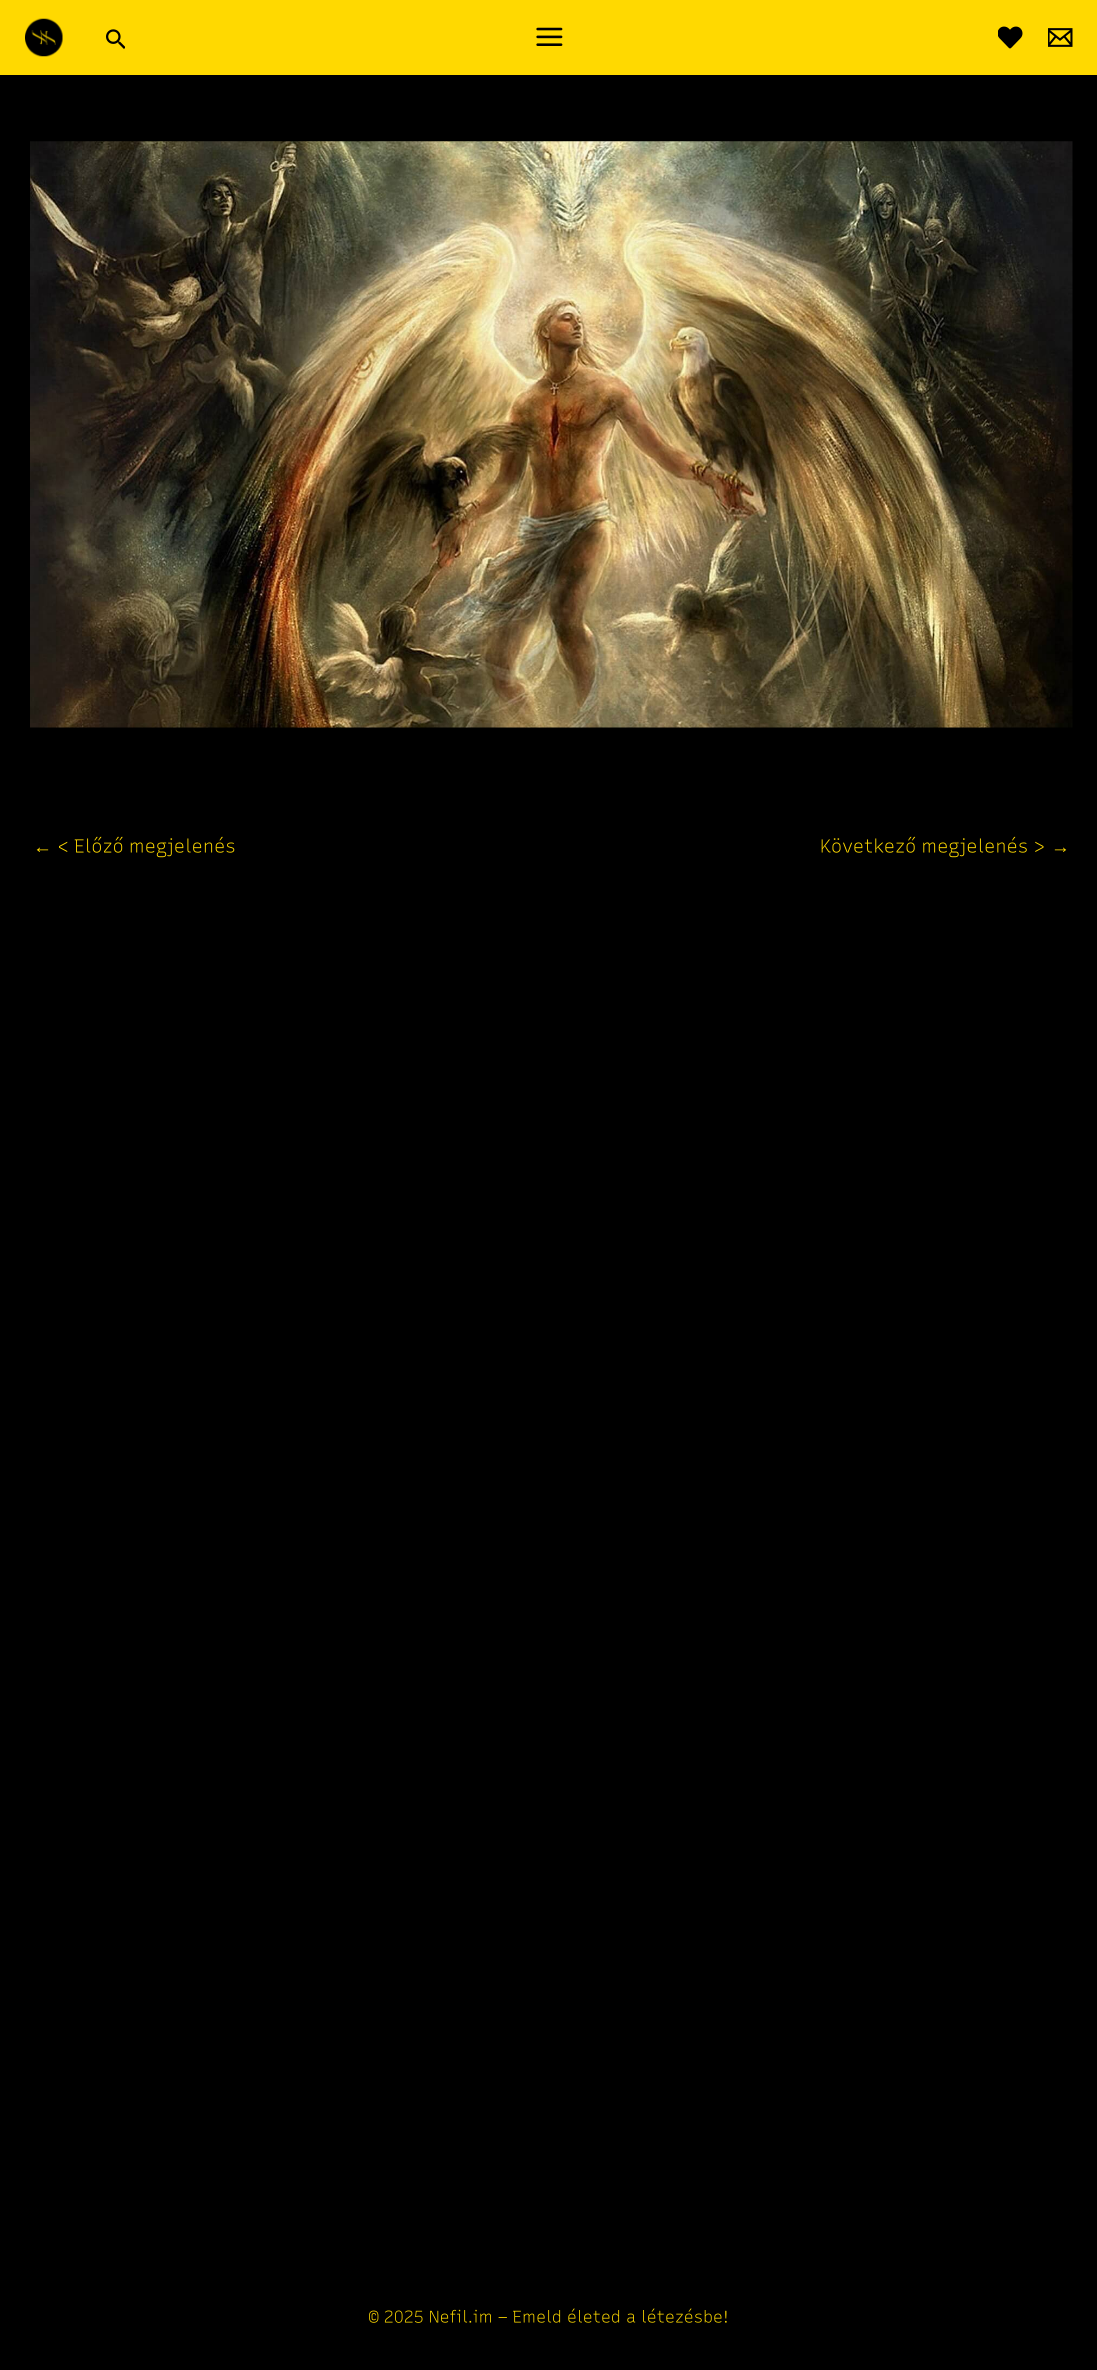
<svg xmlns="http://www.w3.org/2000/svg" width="1097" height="2370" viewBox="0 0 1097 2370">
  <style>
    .t1 { font: 19px Liberation Sans; fill: #ffd900; }
  </style>
  <rect width="100%" height="100%" fill="#000"/>
  <rect x="0" y="0" width="1097" height="75" fill="#ffd900"/>
  <image x="25" y="18" width="38" height="39" href="images/1.png"/>
  <image x="106" y="29" width="19" height="20" href="images/2.png"/>
  <image x="536" y="27" width="27" height="19" href="images/3.png"/>
  <image x="998" y="26" width="25" height="23" href="images/4.png"/>
  <image x="1048" y="28" width="25" height="19" href="images/5.png"/>
  <image x="30" y="141" width="1043" height="587" href="images/6.png"/>
  <text x="33" y="853" class="t1">←</text>
  <image x="59" y="838" width="32" height="15" href="images/7.png"/>
  <image x="92" y="836" width="10" height="17" href="images/8.png"/>
  <image x="104" y="842" width="8" height="11" href="images/9.png"/>
  <image x="114" y="836" width="9" height="17" href="images/10.png"/>
  <image x="130" y="836" width="105" height="22" href="images/11.png"/>
  <image x="821" y="838" width="83" height="15" href="images/12.png"/>
  <image x="906" y="836" width="10" height="17" href="images/13.png"/>
  <image x="923" y="836" width="121" height="22" href="images/14.png"/>
  <text x="1051" y="853" class="t1">→</text>
  <image x="369" y="2308" width="358" height="15" href="images/15.png"/>
</svg>
